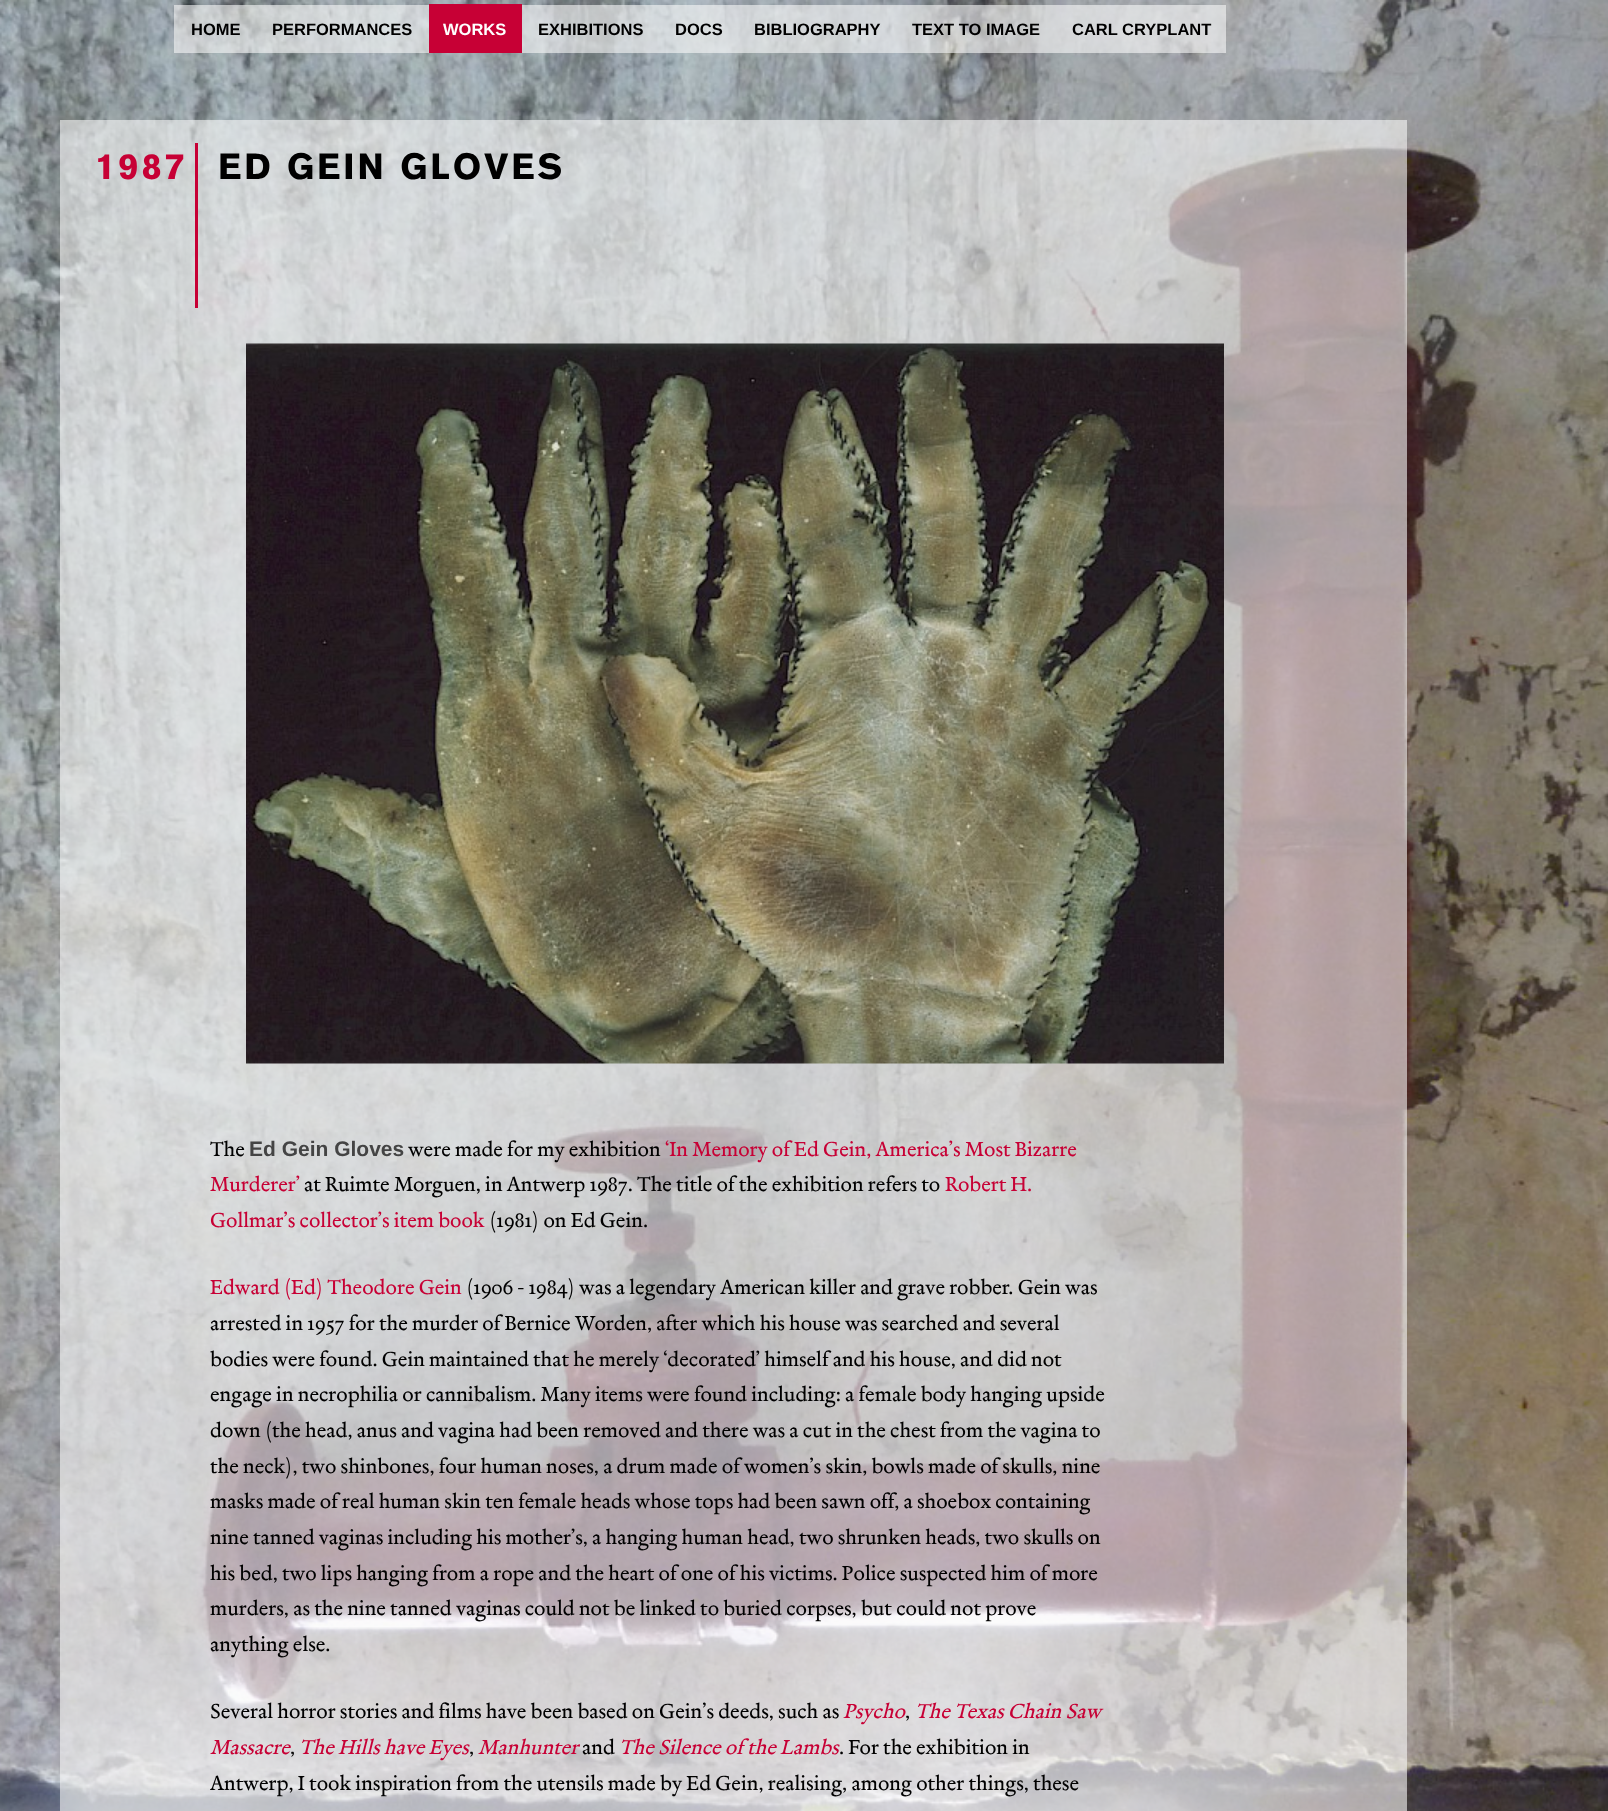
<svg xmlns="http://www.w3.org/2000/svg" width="1608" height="1811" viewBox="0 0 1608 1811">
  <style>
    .t1 { font: bold 16.5px Liberation Sans; fill: #000; }
    .t2 { font: bold 16.5px Liberation Sans; fill: #fff; }
    .t3 { font: bold 36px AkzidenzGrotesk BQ; letter-spacing: 3px; fill: #c70035; }
    .t4 { font: bold 36px AkzidenzGrotesk BQ; letter-spacing: 3px; fill: #000; }
    .t5 { font: 500 21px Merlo; fill: #000; }
    .t6 { font: bold 21px Liberation Sans; fill: #444; }
    .t7 { font: 500 21px Merlo; fill: #c70035; }
    .t8 { font: italic 500 21px Merlo; fill: #c70035; }
  </style>
  <rect width="100%" height="100%" fill="#fff"/>
  <image x="0" y="0" width="1608" height="1811" href="images/1.png"/>
  <rect x="174" y="5" width="1052" height="48" fill="#f8f8f899"/>
  <text x="191" y="35" class="t1">HOME</text>
  <text x="272" y="35" class="t1">PERFORMANCES</text>
  <rect x="429" y="4" width="93" height="49" fill="#c70035"/>
  <text x="443" y="35" class="t2">WORKS</text>
  <text x="538" y="35" class="t1">EXHIBITIONS</text>
  <text x="675" y="35" class="t1">DOCS</text>
  <text x="754" y="35" class="t1">BIBLIOGRAPHY</text>
  <text x="912" y="35" class="t1">TEXT TO IMAGE</text>
  <text x="1072" y="35" class="t1">CARL CRYPLANT</text>
  <rect x="60" y="120" width="1347" height="1691" fill="#f8f8f899"/>
  <rect x="195" y="143" width="3" height="165" fill="#c70035"/>
  <text x="95" y="179" class="t3">1987</text>
  <text x="218" y="179" class="t4">ED GEIN GLOVES</text>
  <image x="246" y="343" width="978" height="721" href="images/2.png"/>
  <text x="210" y="1156" class="t5">The</text>
  <text x="249" y="1156" class="t6">Ed Gein Gloves</text>
  <text x="408" y="1156" class="t5">were made for my exhibition</text>
  <text x="665" y="1156" class="t7">‘In Memory of Ed Gein, America’s Most Bizarre</text>
  <text x="210" y="1191" class="t7">Murderer’</text>
  <text x="304" y="1191" class="t5">at Ruimte Morguen, in Antwerp 1987. The title of the exhibition refers to</text>
  <text x="945" y="1191" class="t7">Robert H.</text>
  <text x="210" y="1227" class="t7">Gollmar’s collector’s item book</text>
  <text x="489" y="1227" class="t5">(1981) on Ed Gein.</text>
  <text x="210" y="1294" class="t7">Edward (Ed) Theodore Gein</text>
  <text x="466" y="1294" class="t5">(1906 - 1984) was a legendary American killer and grave robber. Gein was</text>
  <text x="210" y="1330" class="t5">arrested in 1957 for the murder of Bernice Worden, after which his house was searched and several</text>
  <text x="210" y="1366" class="t5">bodies were found. Gein maintained that he merely ‘decorated’ himself and his house, and did not</text>
  <text x="210" y="1401" class="t5">engage in necrophilia or cannibalism. Many items were found including: a female body hanging upside</text>
  <text x="210" y="1437" class="t5">down (the head, anus and vagina had been removed and there was a cut in the chest from the vagina to</text>
  <text x="210" y="1473" class="t5">the neck), two shinbones, four human noses, a drum made of women’s skin, bowls made of skulls, nine</text>
  <text x="210" y="1508" class="t5">masks made of real human skin ten female heads whose tops had been sawn off, a shoebox containing</text>
  <text x="210" y="1544" class="t5">nine tanned vaginas including his mother’s, a hanging human head, two shrunken heads, two skulls on</text>
  <text x="210" y="1580" class="t5">his bed, two lips hanging from a rope and the heart of one of his victims. Police suspected him of more</text>
  <text x="210" y="1615" class="t5">murders, as the nine tanned vaginas could not be linked to buried corpses, but could not prove</text>
  <text x="210" y="1651" class="t5">anything else.</text>
  <text x="210" y="1718" class="t5">Several horror stories and films have been based on Gein’s deeds, such as</text>
  <text x="843" y="1718" class="t8">Psycho</text>
  <text x="905" y="1718" class="t5">,</text>
  <text x="915" y="1718" class="t8">The Texas Chain Saw</text>
  <text x="210" y="1754" class="t8">Massacre</text>
  <text x="290" y="1754" class="t5">,</text>
  <text x="299" y="1754" class="t8">The Hills have Eyes</text>
  <text x="469" y="1754" class="t5">,</text>
  <text x="478" y="1754" class="t8">Manhunter</text>
  <text x="582" y="1754" class="t5">and</text>
  <text x="619" y="1754" class="t8">The Silence of the Lambs</text>
  <text x="839" y="1754" class="t5">. For the exhibition in</text>
  <text x="210" y="1790" class="t5">Antwerp, I took inspiration from the utensils made by Ed Gein, realising, among other things, these</text>
</svg>
